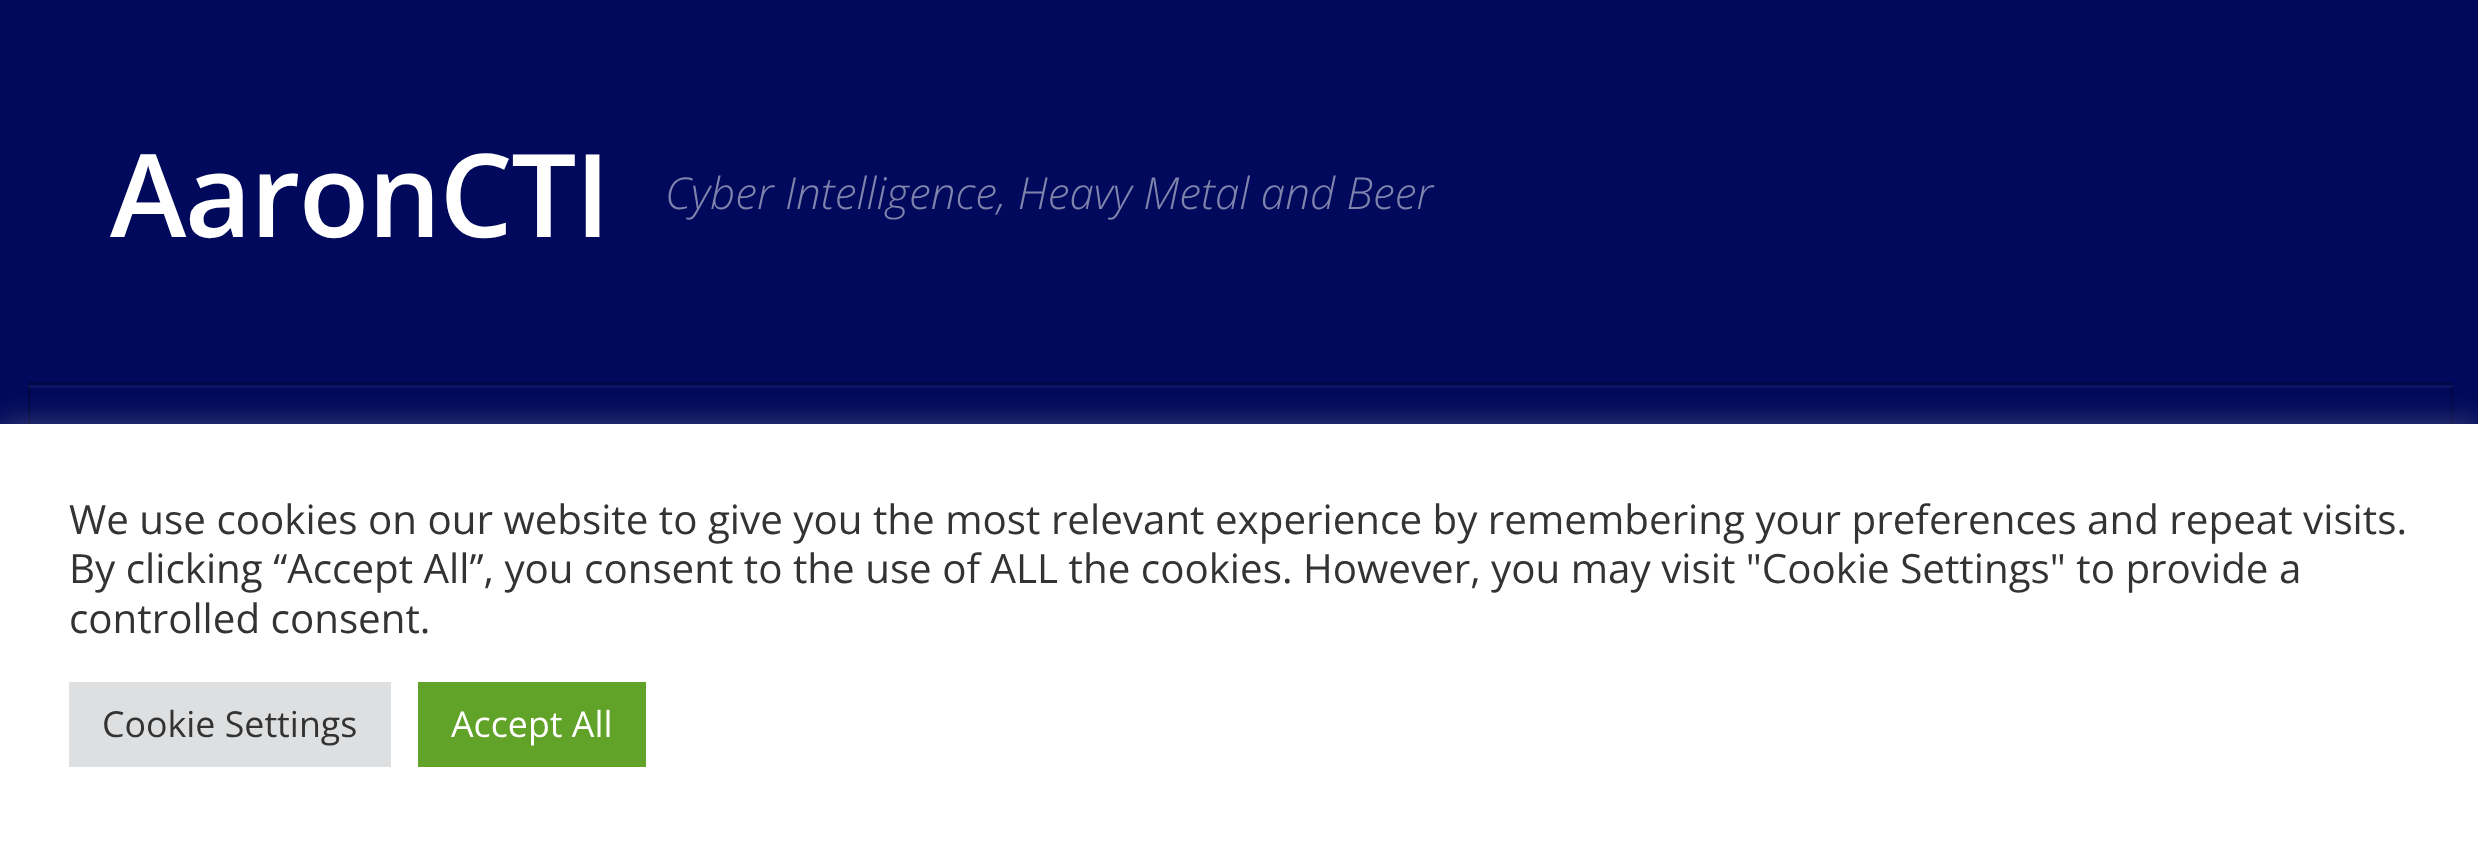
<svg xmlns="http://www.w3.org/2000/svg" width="2478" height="849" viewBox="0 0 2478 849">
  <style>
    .t1 { font: 600 115.5px Open Sans; letter-spacing: -1.5px; fill: #fff; }
    .t2 { font: italic 300 44px Open Sans; fill: #8084ad; }
    .t3 { font: 40.33px Open Sans; fill: #333; }
    .t4 { font: 35.75px Open Sans; fill: #333; }
    .t5 { font: 35.75px Open Sans; fill: #fff; }
  </style>
  <rect width="100%" height="100%" fill="#00095b"/>
  <rect x="28" y="385" width="2425" height="3" fill="#0d1563"/>
  <text x="110" y="237" class="t1">AaronCTI</text>
  <text x="665" y="209" class="t2">Cyber Intelligence, Heavy Metal and Beer</text>
  <rect x="28" y="382" width="2425" height="3" fill="#000749"/>
  <rect x="2450" y="385" width="3" height="39" fill="#000749"/>
  <rect x="2450" y="385" width="3" height="3" fill="#0d1352"/>
  <rect x="28" y="385" width="3" height="39" fill="#000749"/>
  <rect x="28" y="385" width="3" height="3" fill="#0d1352"/>
  <rect x="0" y="421" width="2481" height="426" fill="#acabab4d" filter="blur(14px)"/>
  <rect x="0" y="424" width="2478" height="425" fill="#fff"/>
  <text x="69" y="534" class="t3">We use cookies on our website to give you the most relevant experience by remembering your preferences and repeat visits.</text>
  <text x="69" y="583" class="t3">By clicking “Accept All”, you consent to the use of ALL the cookies. However, you may visit "Cookie Settings" to provide a</text>
  <text x="69" y="633" class="t3">controlled consent.</text>
  <rect x="69" y="682" width="322" height="85" fill="#dedfe0"/>
  <text x="102" y="737" class="t4">Cookie Settings</text>
  <rect x="418" y="682" width="228" height="85" fill="#61a229"/>
  <text x="451" y="737" class="t5">Accept All</text>
</svg>
